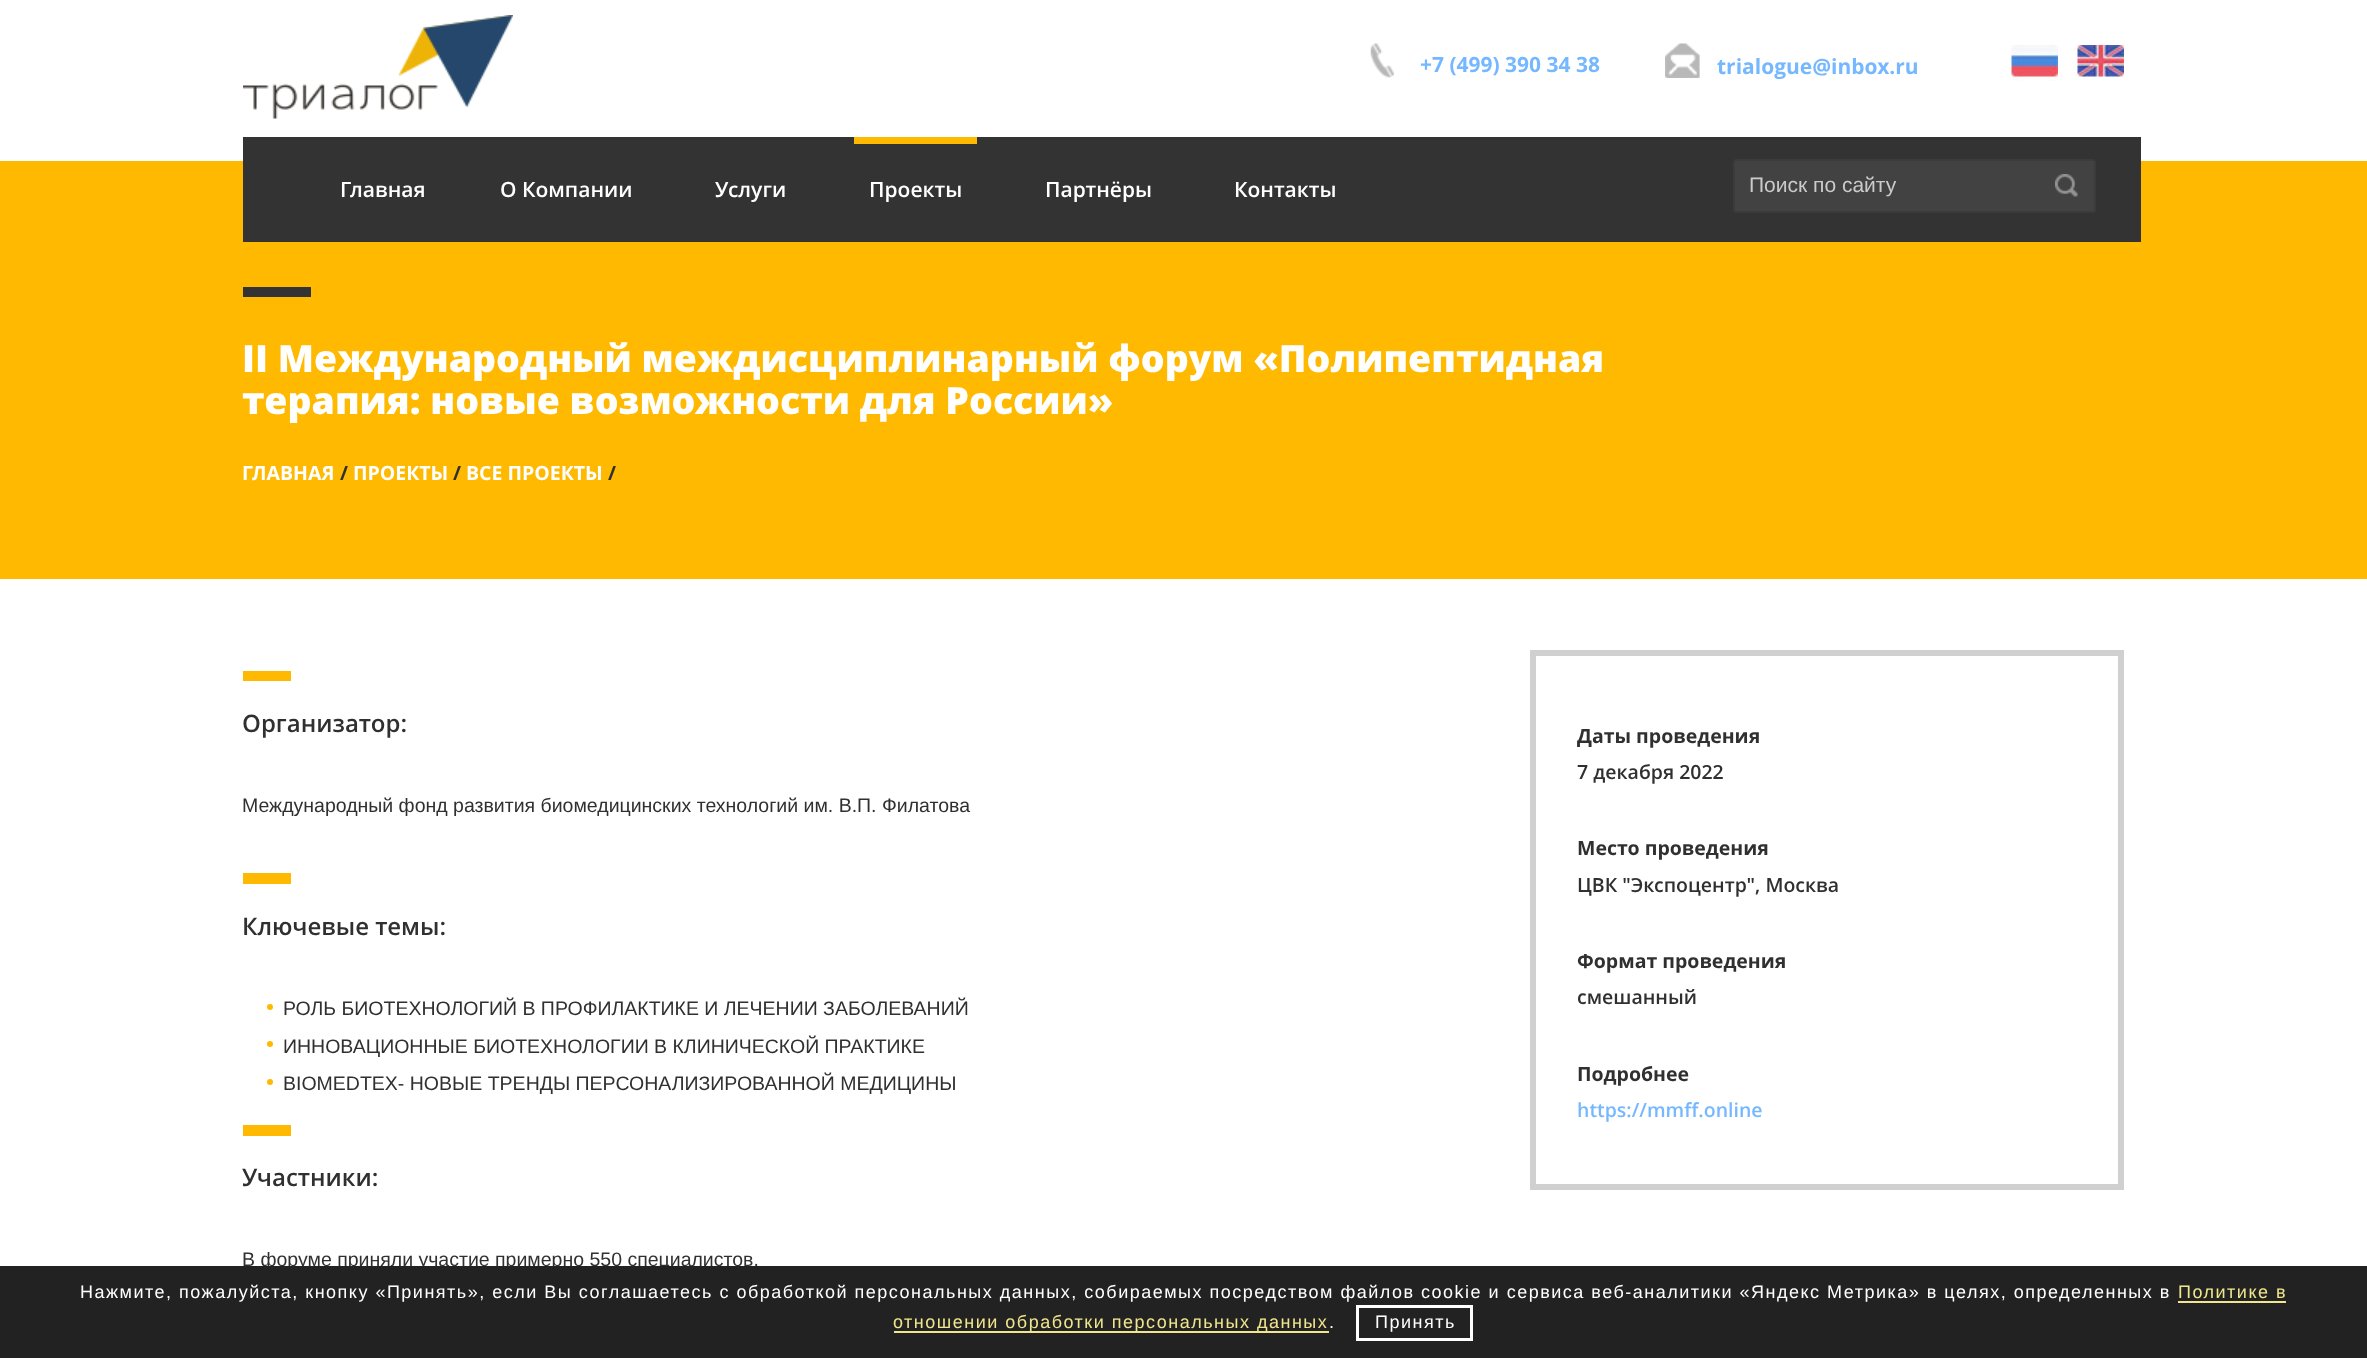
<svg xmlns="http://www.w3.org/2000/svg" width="2367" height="1358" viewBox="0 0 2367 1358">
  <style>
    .t1 { font: bold 21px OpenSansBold; fill: #75b8ff; }
    .t2 { font: 600 21px Open Sans; fill: #fff; }
    .t3 { font: 21px Liberation Sans; fill: #cacaca; }
    .t4 { font: 800 37.5px Open Sans; fill: #fff; }
    .t5 { font: bold 19.5px OpenSansBold; fill: #fff; }
    .t6 { font: bold 19.5px OpenSansBold; fill: #303030; }
    .t7 { font: 600 24px Open Sans; fill: #303030; }
    .t8 { font: 19.5px Liberation Sans; fill: #303030; }
    .t9 { font: 600 19.5px Open Sans; fill: #303030; }
    .t10 { font: 600 19.5px Open Sans; fill: #75b8ff; }
    .t11 { font: 18px Liberation Sans; letter-spacing: 1.5px; fill: #fff; }
    .t12 { font: 18px Liberation Sans; letter-spacing: 1.5px; fill: #f0e68c; }
  </style>
  <rect width="100%" height="100%" fill="#fff"/>
  <image x="243" y="15" width="270" height="104" href="images/1.png"/>
  <image x="1370" y="43" width="25" height="35" href="images/2.png"/>
  <text x="1420" y="72" class="t1">+7 (499) 390 34 38</text>
  <image x="1665" y="43" width="35" height="35" href="images/3.png"/>
  <text x="1717" y="74" class="t1">trialogue@inbox.ru</text>
  <image x="2011" y="45" width="47" height="36" href="images/4.png"/>
  <image x="2077" y="45" width="47" height="32" href="images/5.png"/>
  <rect x="0" y="161" width="2367" height="418" fill="#feb900"/>
  <rect x="243" y="137" width="1898" height="105" fill="#333"/>
  <text x="340" y="197" class="t2">Главная</text>
  <text x="500" y="197" class="t2">О Компании</text>
  <text x="715" y="197" class="t2">Услуги</text>
  <rect x="854" y="137" width="123" height="7" fill="#feb900"/>
  <text x="869" y="197" class="t2">Проекты</text>
  <text x="1045" y="197" class="t2">Партнёры</text>
  <text x="1234" y="197" class="t2">Контакты</text>
  <rect x="1734" y="160" width="361" height="52" rx="2" fill="#424242" stroke="#3b3b3b" stroke-width="2"/>
  <text x="1749" y="192" class="t3">Поиск по сайту</text>
  <image x="2055" y="174" width="23" height="23" href="images/6.png"/>
  <rect x="243" y="287" width="68" height="10" fill="#333"/>
  <text x="242" y="372" class="t4">II Международный междисциплинарный форум «Полипептидная</text>
  <text x="242" y="414" class="t4">терапия: новые возможности для России»</text>
  <text x="242" y="480" class="t5">ГЛАВНАЯ</text>
  <text x="340" y="480" class="t6">/</text>
  <text x="353" y="480" class="t5">ПРОЕКТЫ</text>
  <text x="453" y="480" class="t6">/</text>
  <text x="466" y="480" class="t5">ВСЕ ПРОЕКТЫ</text>
  <text x="608" y="480" class="t6">/</text>
  <rect x="243" y="671" width="48" height="10" fill="#feb900"/>
  <text x="242" y="732" class="t7">Организатор:</text>
  <text x="242" y="812" class="t8">Международный фонд развития биомедицинских технологий им. В.П. Филатова</text>
  <rect x="243" y="873" width="48" height="11" fill="#feb900"/>
  <text x="242" y="935" class="t7">Ключевые темы:</text>
  <circle cx="270" cy="1007" r="3" fill="#feb900"/>
  <text x="283" y="1015" class="t8">РОЛЬ БИОТЕХНОЛОГИЙ В ПРОФИЛАКТИКЕ И ЛЕЧЕНИИ ЗАБОЛЕВАНИЙ</text>
  <circle cx="270" cy="1044" r="3" fill="#feb900"/>
  <text x="283" y="1053" class="t8">ИННОВАЦИОННЫЕ БИОТЕХНОЛОГИИ В КЛИНИЧЕСКОЙ ПРАКТИКЕ</text>
  <circle cx="270" cy="1082" r="3" fill="#feb900"/>
  <text x="283" y="1090" class="t8">BIOMEDTEX- НОВЫЕ ТРЕНДЫ ПЕРСОНАЛИЗИРОВАННОЙ МЕДИЦИНЫ</text>
  <rect x="243" y="1125" width="48" height="11" fill="#feb900"/>
  <text x="242" y="1186" class="t7">Участники:</text>
  <text x="242" y="1266" class="t8">В форуме приняли участие примерно 550 специалистов.</text>
  <rect x="1533" y="653" width="588" height="534" fill="none" stroke="#d0d0d0" stroke-width="6"/>
  <text x="1577" y="743" class="t6">Даты проведения</text>
  <text x="1577" y="779" class="t9">7 декабря 2022</text>
  <text x="1577" y="855" class="t6">Место проведения</text>
  <text x="1577" y="892" class="t9">ЦВК "Экспоцентр", Москва</text>
  <text x="1577" y="968" class="t6">Формат проведения</text>
  <text x="1577" y="1004" class="t9">смешанный</text>
  <text x="1577" y="1081" class="t6">Подробнее</text>
  <text x="1577" y="1117" class="t10">https://mmff.online</text>
  <rect x="0" y="1266" width="2367" height="92" fill="#222"/>
  <text x="80" y="1298" class="t11">Нажмите, пожалуйста, кнопку «Принять», если Вы соглашаетесь с обработкой персональных данных, собираемых посредством файлов cookie и сервиса веб-аналитики «Яндекс Метрика» в целях, определенных в</text>
  <text x="2178" y="1298" class="t12">Политике в</text>
  <rect x="2178" y="1301" width="108" height="2" fill="#f0e68c"/>
  <rect x="894" y="1331" width="435" height="2" fill="#f0e68c"/>
  <text x="893" y="1328" class="t12">отношении обработки персональных данных</text>
  <text x="1329" y="1328" class="t11">.</text>
  <rect x="1357.5" y="1306.5" width="114" height="33" fill="none" stroke="#fff" stroke-width="3"/>
  <text x="1375" y="1328" class="t11">Принять</text>
</svg>
